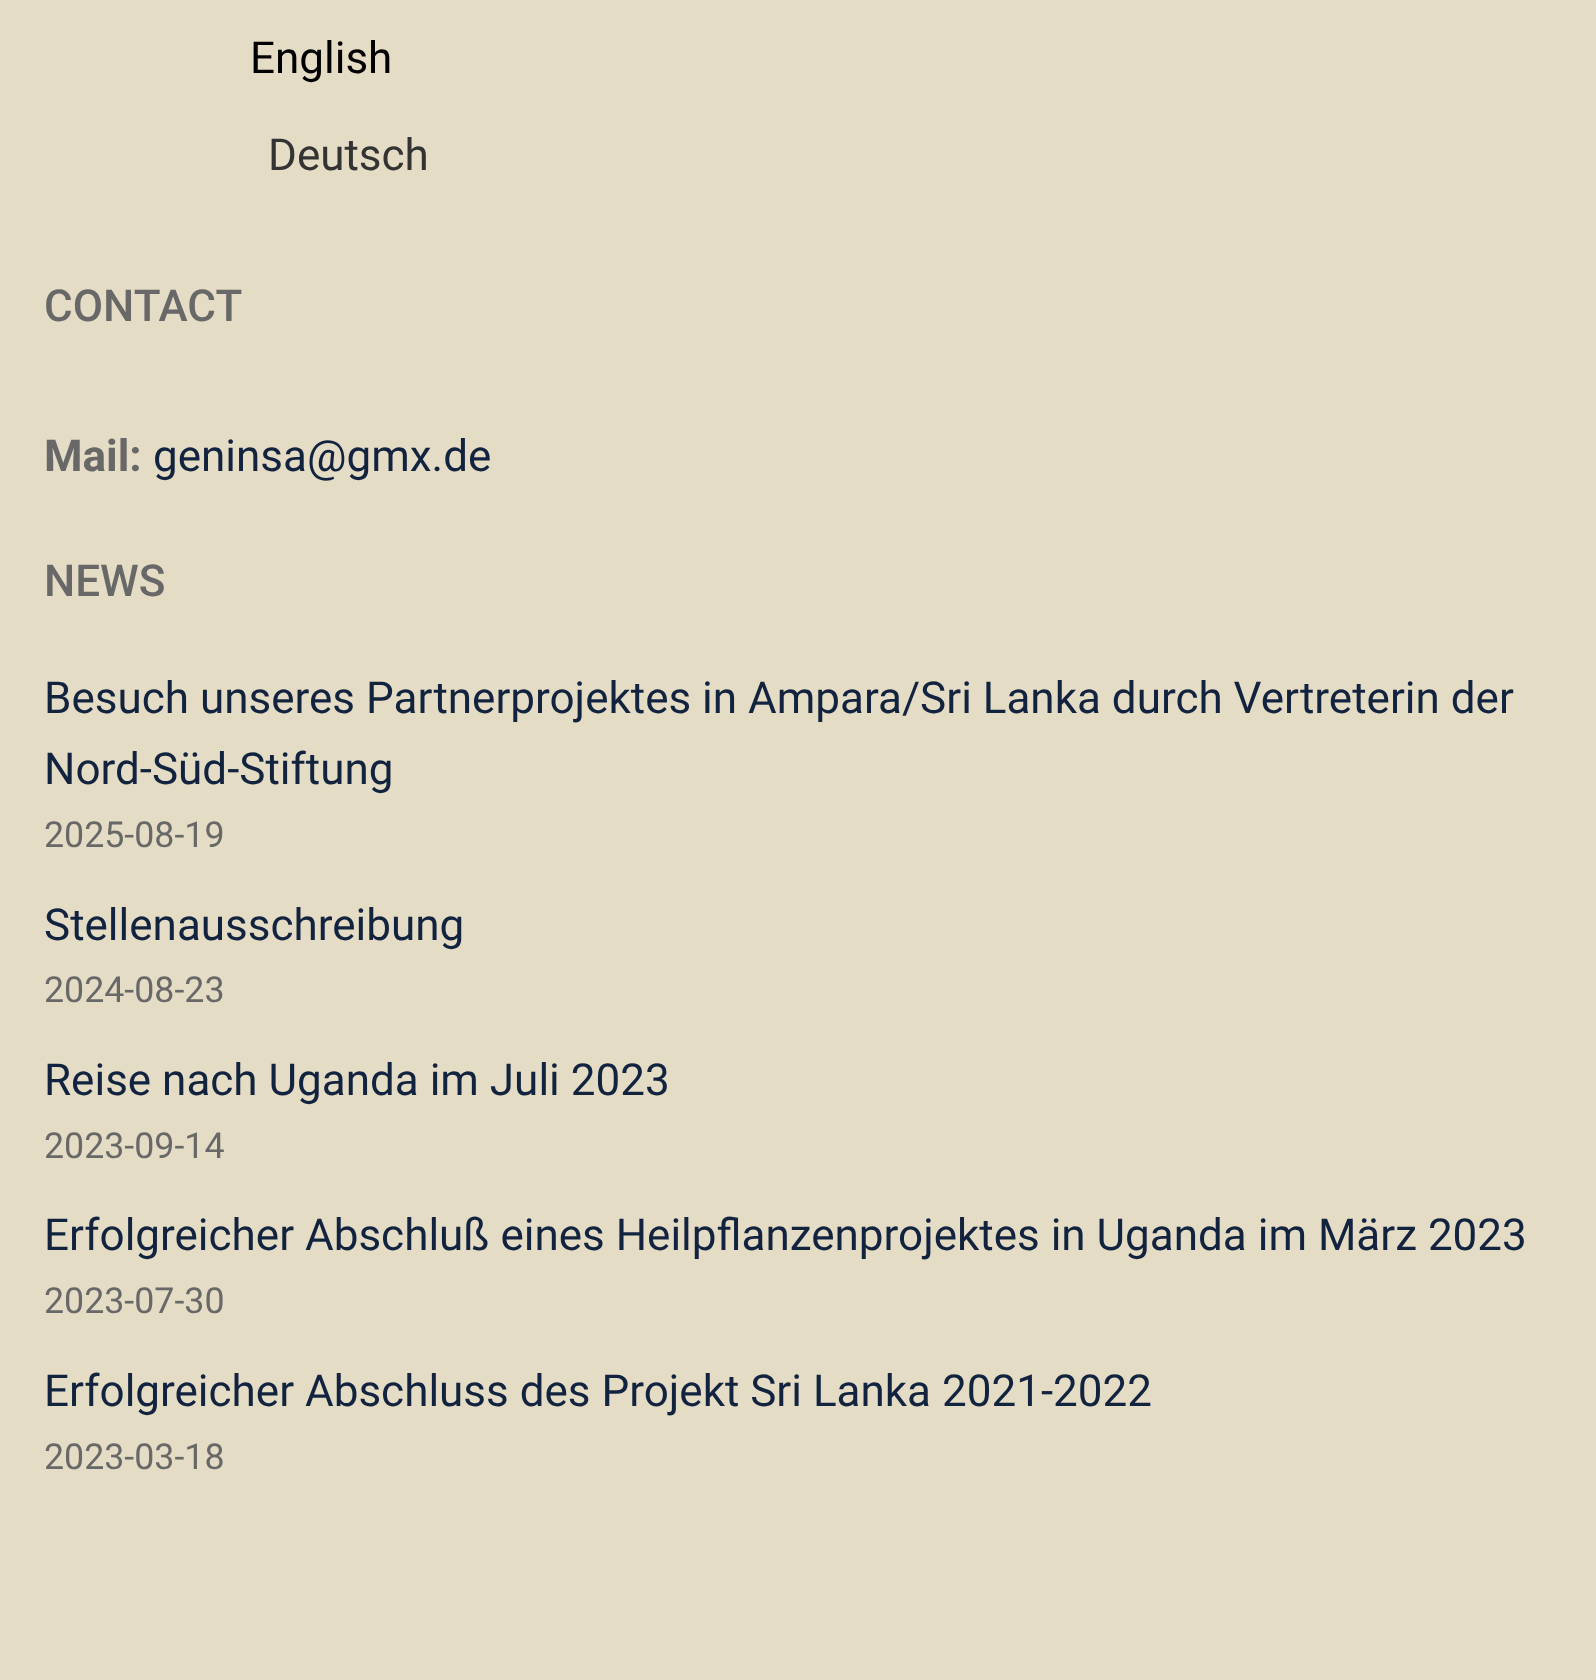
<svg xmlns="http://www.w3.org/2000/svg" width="1596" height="1680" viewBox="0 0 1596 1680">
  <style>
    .t1 { font: 44px Roboto; fill: #000; }
    .t2 { font: 44px Roboto; fill: #333; }
    .t3 { font: 500 44px Roboto; fill: #686868; }
    .t4 { font: bold 44px Roboto; fill: #686868; }
    .t5 { font: 44px Roboto; fill: #12233f; }
    .t6 { font: 35.75px Roboto; fill: #686868; }
  </style>
  <rect width="100%" height="100%" fill="#e5dcc5"/>
  <text x="250" y="73" class="t1">English</text>
  <text x="268" y="170" class="t2">Deutsch</text>
  <text x="44" y="321" class="t3">CONTACT</text>
  <text x="44" y="471" class="t4">Mail:</text>
  <text x="153" y="471" class="t5">geninsa@gmx.de</text>
  <text x="44" y="596" class="t3">NEWS</text>
  <text x="44" y="713" class="t5">Besuch unseres Partnerprojektes in Ampara/Sri Lanka durch Vertreterin der</text>
  <text x="44" y="784" class="t5">Nord-Süd-Stiftung</text>
  <text x="44" y="847" class="t6">2025-08-19</text>
  <text x="44" y="940" class="t5">Stellenausschreibung</text>
  <text x="44" y="1002" class="t6">2024-08-23</text>
  <text x="44" y="1095" class="t5">Reise nach Uganda im Juli 2023</text>
  <text x="44" y="1158" class="t6">2023-09-14</text>
  <text x="44" y="1250" class="t5">Erfolgreicher Abschluß eines Heilpflanzenprojektes in Uganda im März 2023</text>
  <text x="44" y="1313" class="t6">2023-07-30</text>
  <text x="44" y="1406" class="t5">Erfolgreicher Abschluss des Projekt Sri Lanka 2021-2022</text>
  <text x="44" y="1469" class="t6">2023-03-18</text>
</svg>
